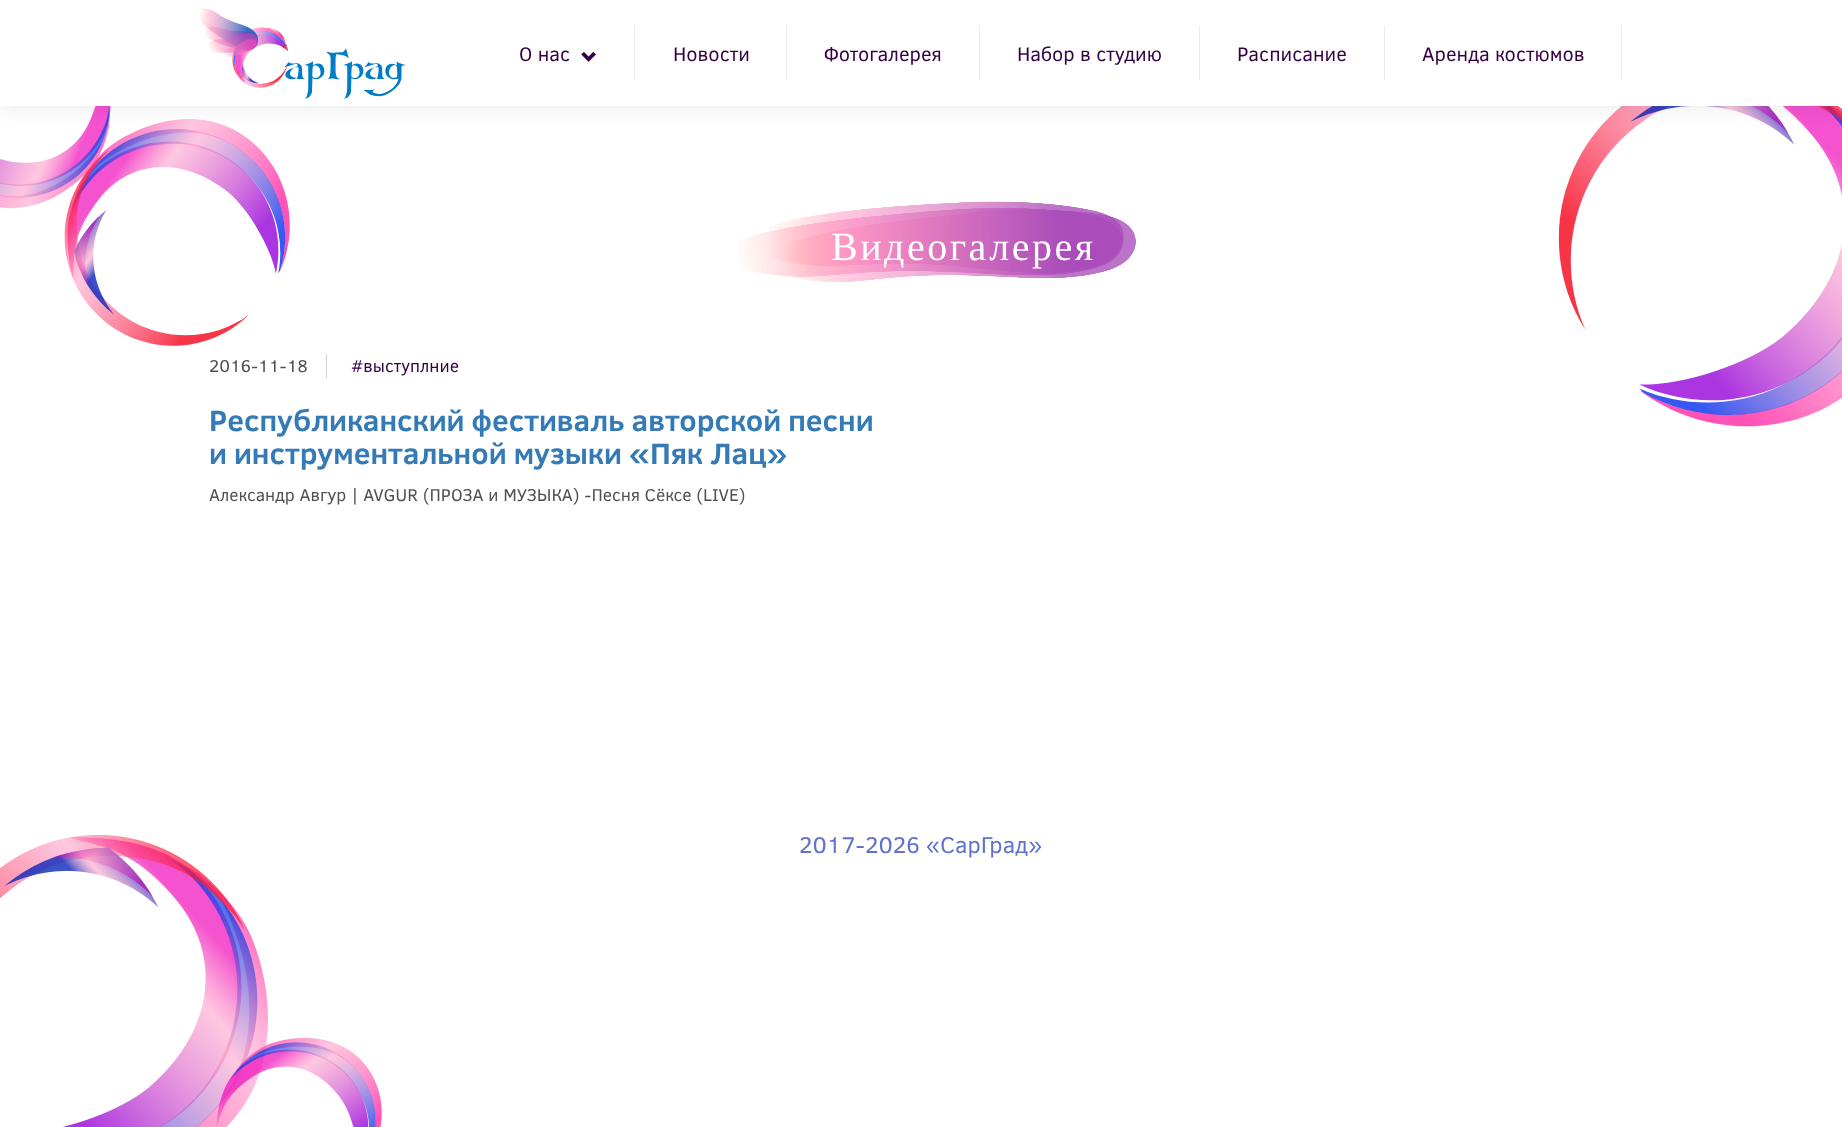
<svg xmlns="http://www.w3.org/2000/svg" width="1842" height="1127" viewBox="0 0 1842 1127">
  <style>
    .t1 { font: 20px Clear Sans; fill: #340044; }
    .t2 { font: 40px Liberation Serif; letter-spacing: 2.5px; fill: #fff; }
    .t3 { font: 17.5px Clear Sans; fill: #505050; }
    .t4 { font: 17.5px Clear Sans; fill: #340044; }
    .t5 { font: bold 30px Clear Sans; fill: #337ab7; }
    .t6 { font: 23.25px Clear Sans; fill: #6073c9; }
  </style>
  <rect width="100%" height="100%" fill="#fff"/>
  <image x="0" y="106" width="1842" height="321" href="images/1.png"/>
  <rect x="0" y="0" width="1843" height="106" fill="#0000001a" filter="blur(9.5px)"/>
  <rect x="0" y="0" width="1842" height="106" fill="#fff"/>
  <image x="199" y="8" width="207" height="91" href="images/2.png"/>
  <text x="519" y="61" class="t1">О нас</text>
  <image x="581" y="51" width="15" height="11" href="images/3.png"/>
  <rect x="634" y="26" width="1" height="54" fill="#ebebeb"/>
  <text x="673" y="61" class="t1">Новости</text>
  <rect x="786" y="26" width="1" height="54" fill="#ebebeb"/>
  <text x="824" y="61" class="t1">Фотогалерея</text>
  <rect x="979" y="26" width="1" height="54" fill="#ebebeb"/>
  <text x="1017" y="61" class="t1">Набор в студию</text>
  <rect x="1199" y="26" width="1" height="54" fill="#ebebeb"/>
  <text x="1237" y="61" class="t1">Расписание</text>
  <rect x="1384" y="26" width="1" height="54" fill="#ebebeb"/>
  <text x="1422" y="61" class="t1">Аренда костюмов</text>
  <rect x="1621" y="26" width="1" height="54" fill="#ebebeb"/>
  <image x="737" y="201" width="400" height="81" href="images/4.png"/>
  <text x="831" y="260" class="t2">Видеогалерея</text>
  <rect x="326" y="354" width="1" height="24" fill="#d3d3d3"/>
  <text x="209" y="372" class="t3">2016-11-18</text>
  <text x="351" y="372" class="t4">#выступлние</text>
  <text x="209" y="431" class="t5">Республиканский фестиваль авторской песни</text>
  <text x="209" y="464" class="t5">и инструментальной музыки «Пяк Лац»</text>
  <text x="209" y="501" class="t3">Александр Авгур | AVGUR (ПРОЗА и МУЗЫКА) -Песня Сёксе (LIVE)</text>
  <text x="799" y="853" class="t6">2017-2026 «СарГрад»</text>
  <image x="0" y="834" width="382" height="293" href="images/5.png"/>
</svg>
